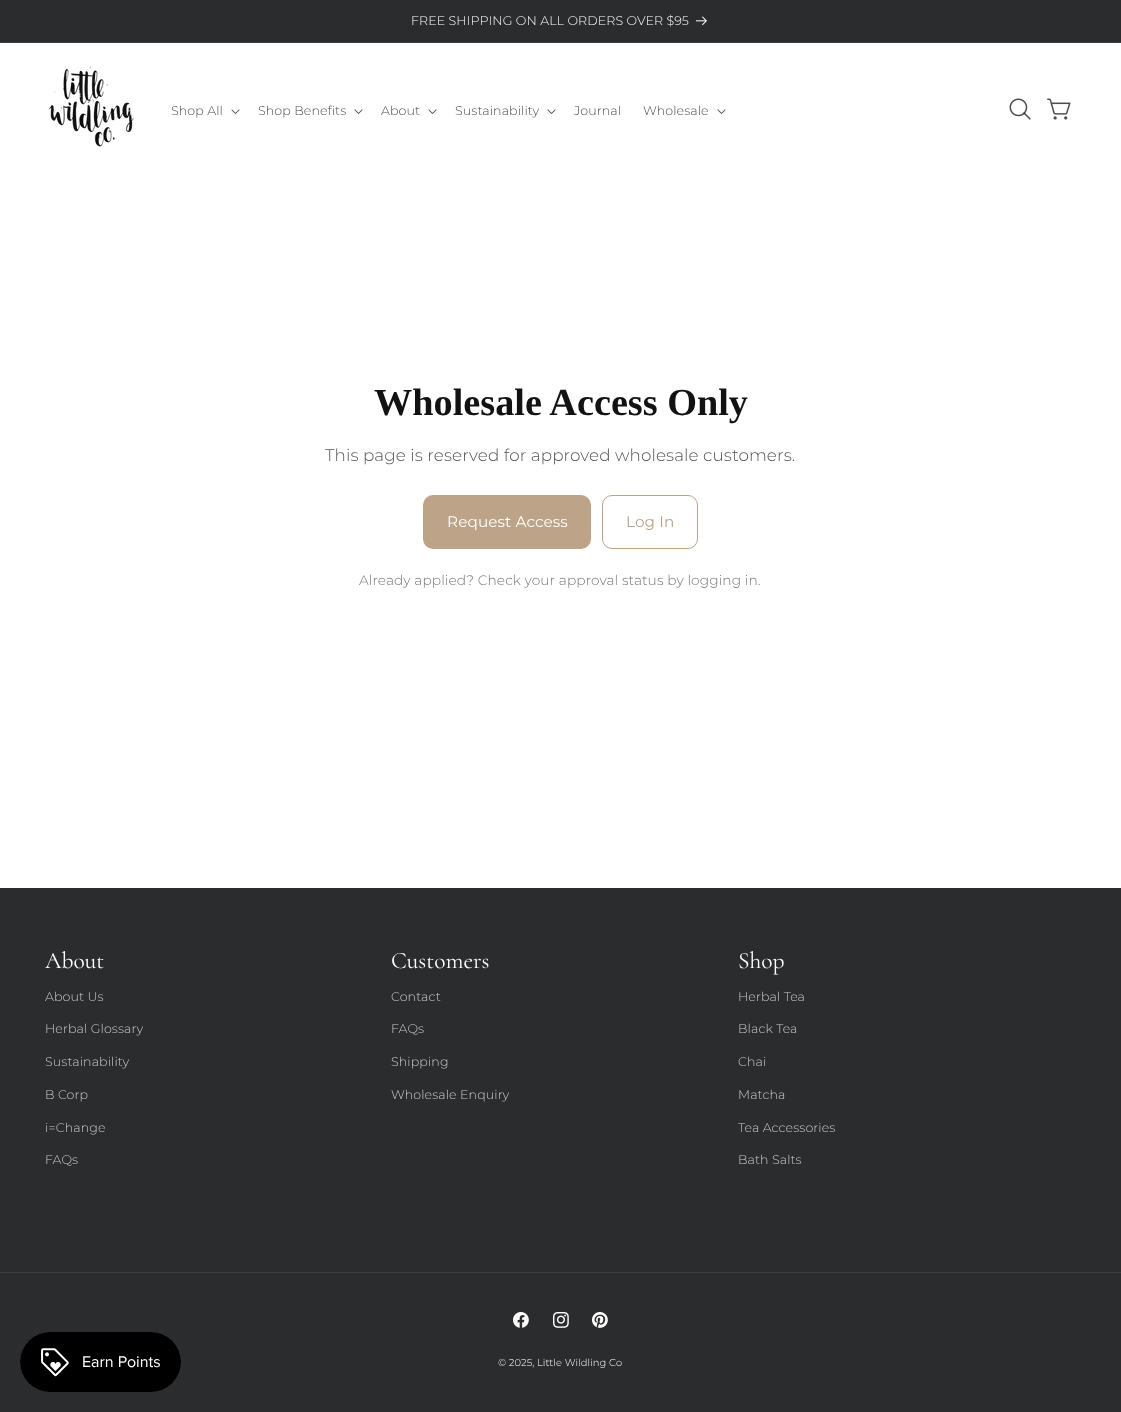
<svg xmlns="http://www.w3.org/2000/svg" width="1121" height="1412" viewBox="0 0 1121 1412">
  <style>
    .t1 { font: 300 12.6px Montserrat; letter-spacing: 0.1px; fill: #fff; }
    .t2 { font: 300 12.6px Montserrat; letter-spacing: 0.1px; fill: #4d4d4d; }
    .t3 { font: bold 38.25px Liberation Serif; fill: #121212; }
    .t4 { font: 300 16.8px Montserrat; letter-spacing: 0.1px; fill: #555; }
    .t5 { font: 100 15.25px Montserrat; letter-spacing: 0.1px; fill: #fff; }
    .t6 { font: 100 15.25px Montserrat; letter-spacing: 0.1px; fill: #bda388; }
    .t7 { font: 300 13.75px Montserrat; letter-spacing: 0.1px; fill: #777; }
    .t8 { font: 23.5px Cormorant; fill: #fff; }
    .t9 { font: 300 12.6px Montserrat; letter-spacing: 0.1px; fill: #cacacb; }
    .t10 { font: 300 9.9px Montserrat; letter-spacing: 0.1px; fill: #fff; }
  </style>
  <rect width="100%" height="100%" fill="#fff"/>
  <rect x="0" y="0" width="1121" height="42" fill="#2b2c2e"/>
  <rect x="0" y="42" width="1121" height="1" fill="#3c3d3f"/>
  <text x="411" y="25" class="t1">FREE SHIPPING ON ALL ORDERS OVER $95</text>
  <image x="696" y="16" width="11" height="10" href="images/1.png"/>
  <image x="49" y="66" width="85" height="81" href="images/2.png"/>
  <text x="171" y="115" class="t2">Shop All</text>
  <image x="231" y="109" width="9" height="5" href="images/3.png"/>
  <text x="258" y="115" class="t2">Shop Benefits</text>
  <image x="354" y="109" width="9" height="5" href="images/3.png"/>
  <text x="381" y="115" class="t2">About</text>
  <image x="428" y="109" width="9" height="5" href="images/3.png"/>
  <text x="455" y="115" class="t2">Sustainability</text>
  <image x="547" y="109" width="9" height="5" href="images/3.png"/>
  <text x="574" y="115" class="t2">Journal</text>
  <text x="643" y="115" class="t2">Wholesale</text>
  <image x="717" y="109" width="9" height="5" href="images/3.png"/>
  <image x="1009" y="98" width="22" height="22" href="images/4.png"/>
  <image x="1047" y="98" width="24" height="22" href="images/5.png"/>
  <text x="374" y="415" class="t3">Wholesale Access Only</text>
  <text x="325" y="461" class="t4">This page is reserved for approved wholesale customers.</text>
  <rect x="423" y="495" width="168" height="54" rx="10" fill="#bda388"/>
  <text x="447" y="527" class="t5">Request Access</text>
  <rect x="602.5" y="495.5" width="95" height="53" rx="9.5" fill="none" stroke="#bda388"/>
  <text x="626" y="527" class="t6">Log In</text>
  <text x="359" y="585" class="t7">Already applied? Check your approval status by logging in.</text>
  <rect x="0" y="888" width="1121" height="524" fill="#2b2c2e"/>
  <text x="45" y="968" class="t8">About</text>
  <text x="45" y="1001" class="t9">About Us</text>
  <text x="45" y="1033" class="t9">Herbal Glossary</text>
  <text x="45" y="1066" class="t9">Sustainability</text>
  <text x="45" y="1099" class="t9">B Corp</text>
  <text x="45" y="1132" class="t9">i=Change</text>
  <text x="45" y="1164" class="t9">FAQs</text>
  <text x="391" y="968" class="t8">Customers</text>
  <text x="391" y="1001" class="t9">Contact</text>
  <text x="391" y="1033" class="t9">FAQs</text>
  <text x="391" y="1066" class="t9">Shipping</text>
  <text x="391" y="1099" class="t9">Wholesale Enquiry</text>
  <text x="738" y="968" class="t8">Shop</text>
  <text x="738" y="1001" class="t9">Herbal Tea</text>
  <text x="738" y="1033" class="t9">Black Tea</text>
  <text x="738" y="1066" class="t9">Chai</text>
  <text x="738" y="1099" class="t9">Matcha</text>
  <text x="738" y="1132" class="t9">Tea Accessories</text>
  <text x="738" y="1164" class="t9">Bath Salts</text>
  <rect x="0" y="1272" width="1121" height="1" fill="#3c3d3f"/>
  <image x="513" y="1312" width="16" height="16" href="images/6.png"/>
  <image x="553" y="1312" width="16" height="16" href="images/7.png"/>
  <image x="592" y="1312" width="16" height="16" href="images/8.png"/>
  <text x="498" y="1366" class="t10">© 2025, Little Wildling Co</text>
  <image x="20" y="1332" width="161" height="60" href="images/9.png"/>
</svg>
